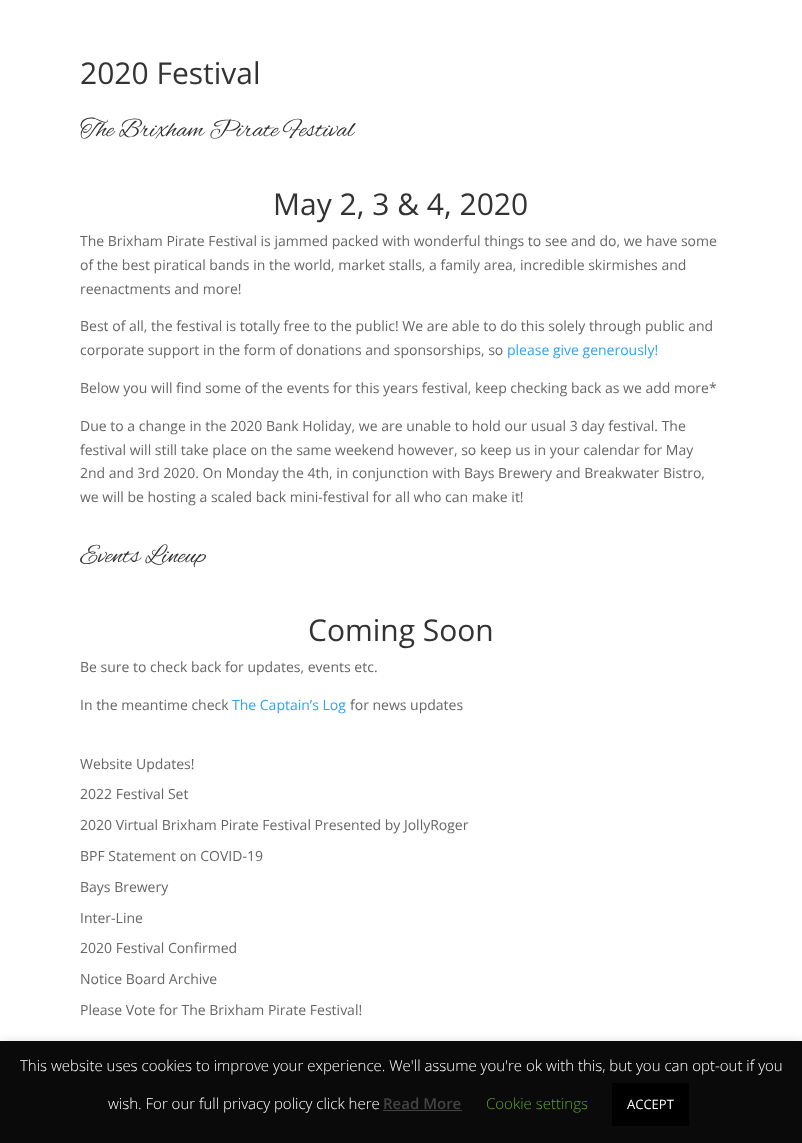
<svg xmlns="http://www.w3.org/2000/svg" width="802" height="1143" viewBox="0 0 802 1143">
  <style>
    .t1 { font: 30px Open Sans; fill: #333; }
    .t2 { font: 26px Alex Brush; fill: #333; }
    .t3 { font: 14px Open Sans; fill: #666; }
    .t4 { font: 14px Open Sans; fill: #2ea3f2; }
    .t5 { font: 300 15px Open Sans; fill: #fff; }
    .t6 { font: 600 15px Open Sans; fill: #444; }
    .t7 { font: 300 15px Open Sans; fill: #62a329; }
    .t8 { font: 13px Open Sans; fill: #fff; }
  </style>
  <rect width="100%" height="100%" fill="#fff"/>
  <text x="80" y="84" class="t1">2020 Festival</text>
  <text x="80" y="136" class="t2">The Brixham Pirate Festival</text>
  <text x="273" y="215" class="t1">May 2, 3 &amp; 4, 2020</text>
  <text x="80" y="246" class="t3">The Brixham Pirate Festival is jammed packed with wonderful things to see and do, we have some</text>
  <text x="80" y="270" class="t3">of the best piratical bands in the world, market stalls, a family area, incredible skirmishes and</text>
  <text x="80" y="294" class="t3">reenactments and more!</text>
  <text x="80" y="331" class="t3">Best of all, the festival is totally free to the public! We are able to do this solely through public and</text>
  <text x="80" y="355" class="t3">corporate support in the form of donations and sponsorships, so</text>
  <text x="507" y="355" class="t4">please give generously!</text>
  <text x="80" y="393" class="t3">Below you will find some of the events for this years festival, keep checking back as we add more*</text>
  <text x="80" y="431" class="t3">Due to a change in the 2020 Bank Holiday, we are unable to hold our usual 3 day festival. The</text>
  <text x="80" y="455" class="t3">festival will still take place on the same weekend however, so keep us in your calendar for May</text>
  <text x="80" y="478" class="t3">2nd and 3rd 2020. On Monday the 4th, in conjunction with Bays Brewery and Breakwater Bistro,</text>
  <text x="80" y="502" class="t3">we will be hosting a scaled back mini-festival for all who can make it!</text>
  <text x="80" y="562" class="t2">Events Lineup</text>
  <text x="308" y="641" class="t1">Coming Soon</text>
  <text x="80" y="672" class="t3">Be sure to check back for updates, events etc.</text>
  <text x="80" y="710" class="t3">In the meantime check</text>
  <text x="232" y="710" class="t4">The Captain’s Log</text>
  <text x="350" y="710" class="t3">for news updates</text>
  <text x="80" y="769" class="t3">Website Updates!</text>
  <text x="80" y="799" class="t3">2022 Festival Set</text>
  <text x="80" y="830" class="t3">2020 Virtual Brixham Pirate Festival Presented by JollyRoger</text>
  <text x="80" y="861" class="t3">BPF Statement on COVID-19</text>
  <text x="80" y="892" class="t3">Bays Brewery</text>
  <text x="80" y="923" class="t3">Inter-Line</text>
  <text x="80" y="953" class="t3">2020 Festival Confirmed</text>
  <text x="80" y="984" class="t3">Notice Board Archive</text>
  <text x="80" y="1015" class="t3">Please Vote for The Brixham Pirate Festival!</text>
  <rect x="0" y="1040" width="802" height="102" fill="#acabab4d" filter="blur(5px)"/>
  <rect x="0" y="1041" width="802" height="102" fill="#0a0a0a"/>
  <text x="20" y="1071" class="t5">This website uses cookies to improve your experience. We'll assume you're ok with this, but you can opt-out if you</text>
  <text x="108" y="1109" class="t5">wish. For our full privacy policy click here</text>
  <text x="383" y="1109" class="t6">Read More</text>
  <rect x="383" y="1110" width="79" height="1" fill="#444"/>
  <text x="486" y="1109" class="t7">Cookie settings</text>
  <rect x="612" y="1083" width="77" height="43" fill="#000"/>
  <text x="627" y="1109" class="t8">ACCEPT</text>
</svg>
